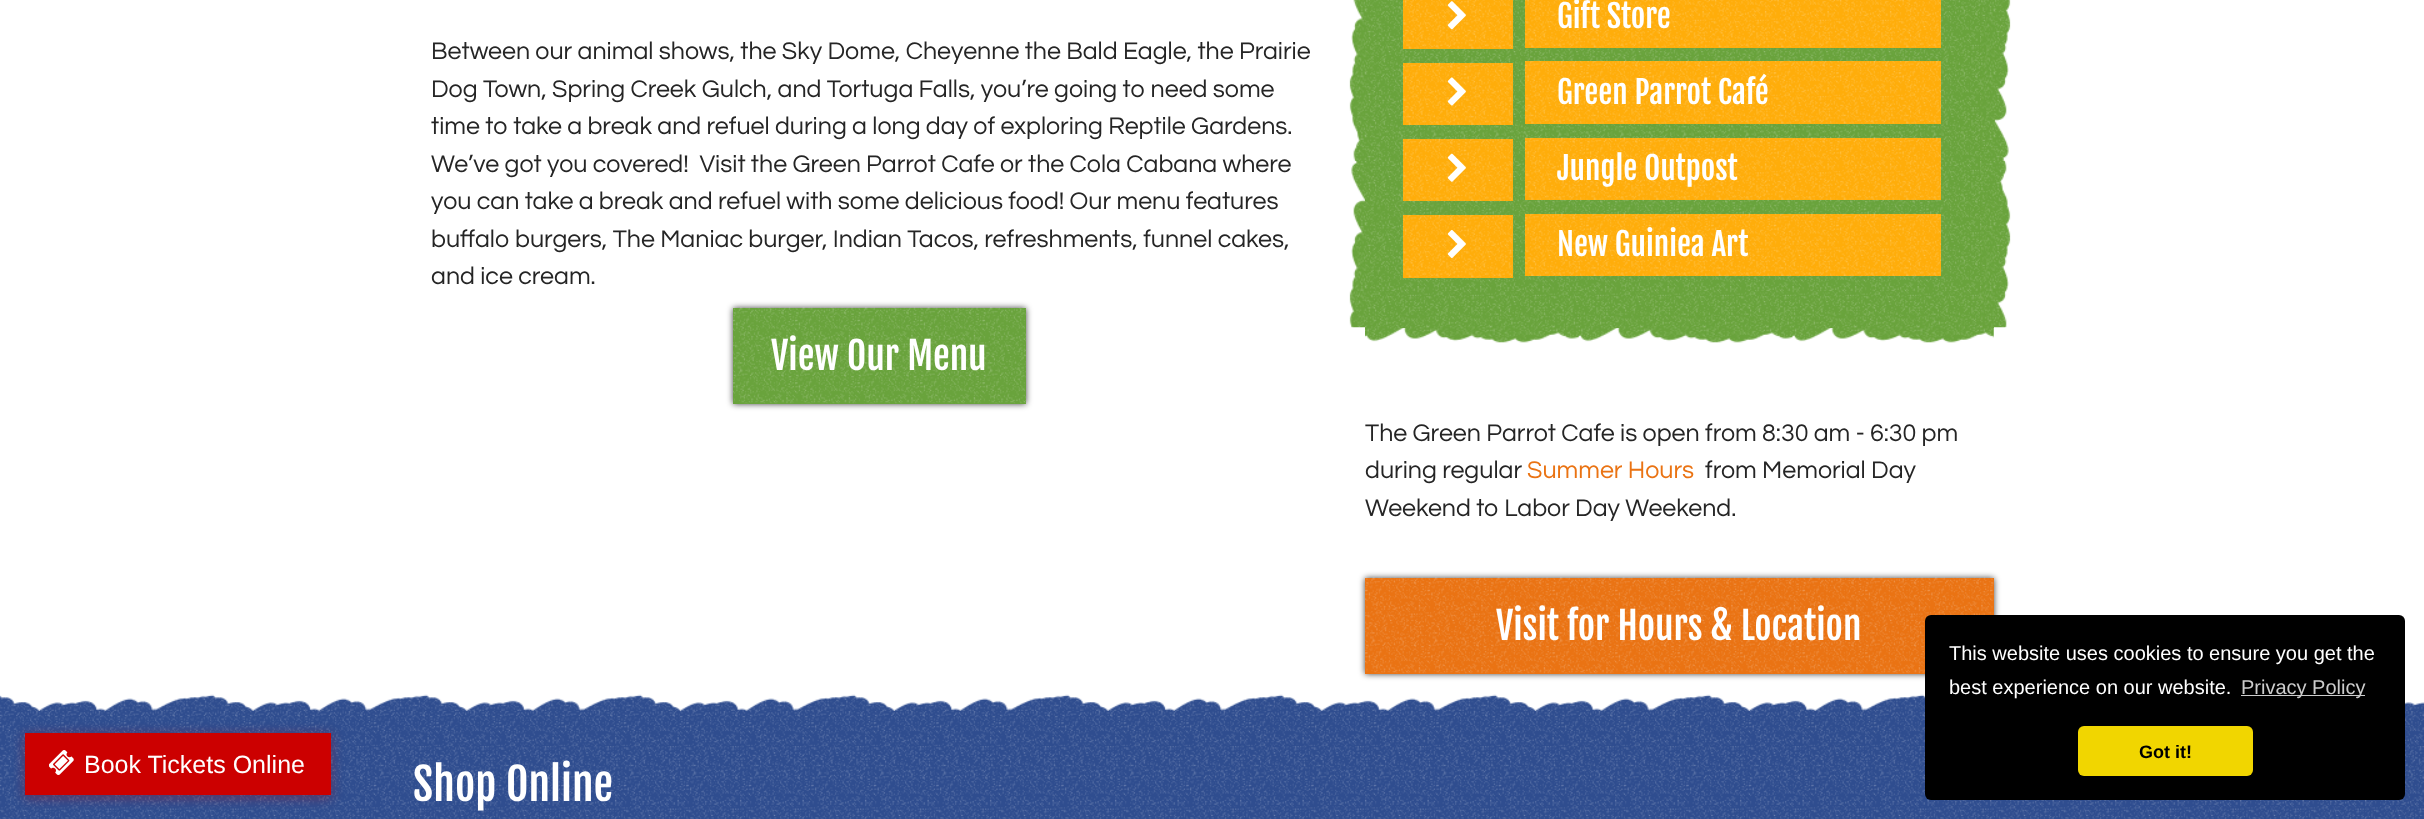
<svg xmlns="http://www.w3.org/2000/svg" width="2424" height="819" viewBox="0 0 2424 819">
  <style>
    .t1 { font: 25px Liberation Sans; fill: #fff; }
    .t2 { font: 25px Questrial; fill: #252525; }
    .t3 { font: 37.5px Fjalla One; fill: #fff; }
    .t4 { font: 31.25px Fjalla One; fill: #fff; }
    .t5 { font: 25px Questrial; fill: #ea7313; }
    .t6 { font: 43.75px Fjalla One; fill: #fff; }
    .t7 { font: 20px Liberation Sans; fill: #fff; }
    .t8 { font: 20px Liberation Sans; fill: #ccc; }
    .t9 { font: bold 18px Liberation Sans; fill: #000; }
  </style>
  <rect width="100%" height="100%" fill="#fff"/>
  <rect x="0" y="711" width="2424" height="108" fill="#2f4d8f"/>
  <image x="0" y="711" width="2424" height="108" href="images/20.png"/>
  <rect x="25" y="735" width="306" height="63" fill="#cc00004d" filter="blur(6px)"/>
  <rect x="25" y="733" width="306" height="62" fill="#c00"/>
  <image x="49" y="750" width="25" height="25" href="images/1.png"/>
  <text x="84" y="773" class="t1">Book Tickets Online</text>
  <text x="431" y="59" class="t2">Between our animal shows, the Sky Dome, Cheyenne the Bald Eagle, the Prairie</text>
  <text x="431" y="97" class="t2">Dog Town, Spring Creek Gulch, and Tortuga Falls, you’re going to need some</text>
  <text x="431" y="134" class="t2">time to take a break and refuel during a long day of exploring Reptile Gardens.</text>
  <text x="431" y="172" class="t2" xml:space="preserve">We’ve got you covered!  Visit the Green Parrot Cafe or the Cola Cabana where</text>
  <text x="431" y="209" class="t2">you can take a break and refuel with some delicious food! Our menu features</text>
  <text x="431" y="247" class="t2">buffalo burgers, The Maniac burger, Indian Tacos, refreshments, funnel cakes,</text>
  <text x="431" y="284" class="t2">and ice cream.</text>
  <rect x="733" y="308" width="293" height="96" fill="#000000bf" filter="blur(3px)"/>
  <rect x="733" y="308" width="293" height="96" fill="#69a33c"/>
  <image x="733" y="307" width="293" height="97" href="images/2.png"/>
  <text x="771" y="370" class="t3">View Our Menu</text>
  <rect x="1365" y="0" width="629" height="328" fill="#69a33c"/>
  <image x="1365" y="0" width="628" height="328" href="images/3.png"/>
  <image x="1349" y="0" width="33" height="328" href="images/4.png"/>
  <rect x="1403" y="0" width="110" height="49" fill="#ffad0a"/>
  <image x="1402" y="0" width="111" height="49" href="images/5.png"/>
  <image x="1447" y="1" width="19" height="29" href="images/6.png"/>
  <rect x="1525" y="0" width="416" height="48" fill="#ffad0a"/>
  <image x="1525" y="0" width="417" height="48" href="images/7.png"/>
  <text x="1557" y="28" class="t4">Gift Store</text>
  <rect x="1403" y="63" width="110" height="62" fill="#ffad0a"/>
  <image x="1402" y="62" width="111" height="63" href="images/8.png"/>
  <image x="1447" y="77" width="19" height="29" href="images/9.png"/>
  <rect x="1525" y="61" width="416" height="63" fill="#ffad0a"/>
  <image x="1525" y="61" width="417" height="63" href="images/10.png"/>
  <text x="1557" y="104" class="t4">Green Parrot Café</text>
  <rect x="1403" y="139" width="110" height="62" fill="#ffad0a"/>
  <image x="1402" y="138" width="111" height="63" href="images/11.png"/>
  <image x="1447" y="153" width="19" height="29" href="images/12.png"/>
  <rect x="1525" y="138" width="416" height="62" fill="#ffad0a"/>
  <image x="1525" y="137" width="417" height="63" href="images/13.png"/>
  <text x="1557" y="180" class="t4">Jungle Outpost</text>
  <rect x="1403" y="215" width="110" height="63" fill="#ffad0a"/>
  <image x="1402" y="214" width="111" height="64" href="images/14.png"/>
  <image x="1447" y="229" width="19" height="29" href="images/15.png"/>
  <rect x="1525" y="214" width="416" height="62" fill="#ffad0a"/>
  <image x="1525" y="213" width="417" height="63" href="images/16.png"/>
  <text x="1557" y="256" class="t4">New Guiniea Art</text>
  <image x="1978" y="0" width="33" height="328" href="images/17.png"/>
  <image x="1365" y="311" width="629" height="32" href="images/18.png"/>
  <text x="1365" y="441" class="t2">The Green Parrot Cafe is open from 8:30 am - 6:30 pm</text>
  <text x="1365" y="478" class="t2">during regular</text>
  <text x="1527" y="478" class="t5">Summer Hours</text>
  <text x="1705" y="478" class="t2">from Memorial Day</text>
  <text x="1365" y="516" class="t2">Weekend to Labor Day Weekend.</text>
  <rect x="1365" y="578" width="629" height="96" fill="#000000bf" filter="blur(3px)"/>
  <rect x="1365" y="578" width="629" height="96" fill="#ea7313"/>
  <image x="1365" y="577" width="629" height="97" href="images/19.png"/>
  <text x="1496" y="640" class="t3">Visit for Hours &amp; Location</text>
  <image x="0" y="694" width="2424" height="17" href="images/21.png"/>
  <text x="413" y="801" class="t6">Shop Online</text>
  <rect x="1925" y="615" width="480" height="185" rx="6" fill="#000"/>
  <text x="1949" y="660" class="t7">This website uses cookies to ensure you get the</text>
  <text x="1949" y="694" class="t7">best experience on our website.</text>
  <rect x="2241" y="695" width="124" height="1" fill="#ccc"/>
  <text x="2241" y="694" class="t8">Privacy Policy</text>
  <rect x="2078" y="726" width="175" height="50" rx="6" fill="#f1d600"/>
  <text x="2139" y="758" class="t9">Got it!</text>
</svg>
